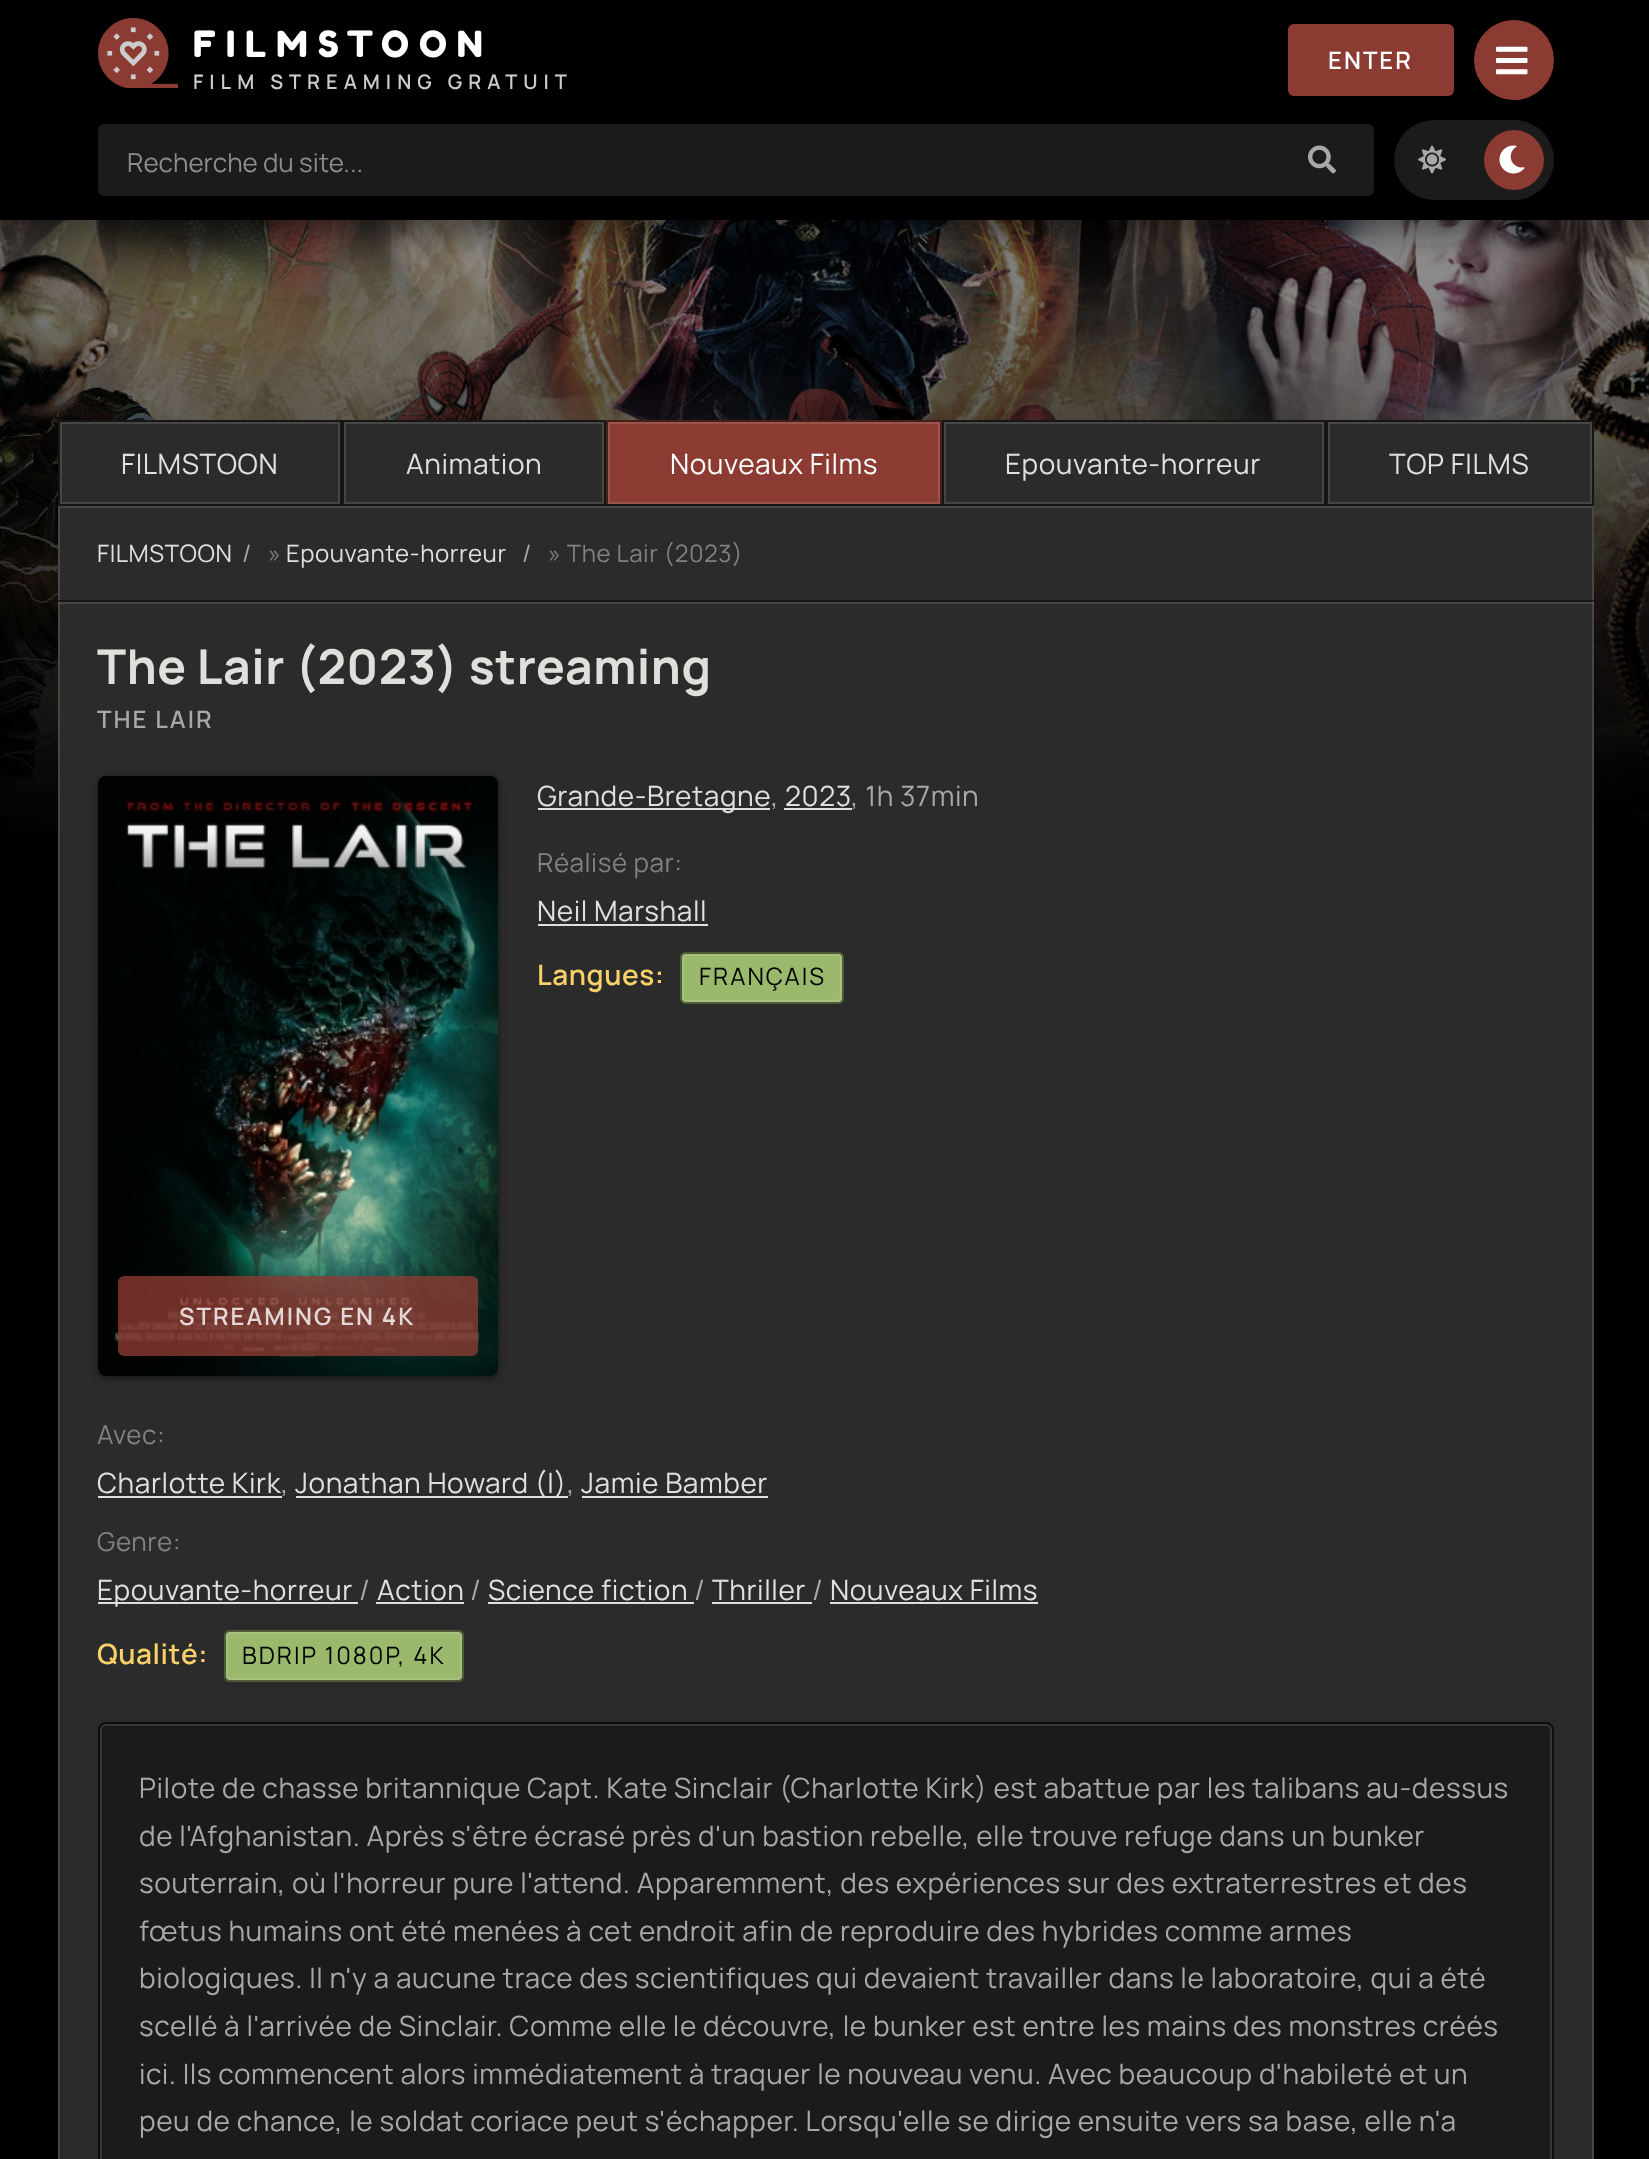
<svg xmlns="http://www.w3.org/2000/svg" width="1649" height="2159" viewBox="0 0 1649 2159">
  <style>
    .t1 { font: 36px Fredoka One; letter-spacing: 10px; fill: #fff; }
    .t2 { font: 200 20px 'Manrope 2'; letter-spacing: 6px; fill: #ccc; }
    .t3 { font: 200 24px 'Manrope 2'; letter-spacing: 2px; fill: #fff; }
    .t4 { font: 200 26px Manrope; fill: #8c8c8c; }
    .t5 { font: 200 28px Manrope; letter-spacing: 0.56px; fill: #e0dfdc; }
    .t6 { font: 200 28px Manrope; letter-spacing: 0.56px; fill: #fff; }
    .t7 { font: 200 24px Manrope; letter-spacing: 0.56px; fill: #e0dfdc; }
    .t8 { font: 200 24px Manrope; letter-spacing: 0.56px; fill: #a8a8a8; }
    .t9 { font: 200 24px Manrope; letter-spacing: 0.56px; fill: #818181; }
    .t10 { font: 200 48px 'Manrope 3'; letter-spacing: 0.56px; fill: #e0dfdc; }
    .t11 { font: 200 24px 'Manrope 2'; letter-spacing: 2px; fill: #a8a8a8; }
    .t12 { font: 200 28px Manrope; letter-spacing: 0.56px; fill: #a8a8a8; }
    .t13 { font: 200 26px Manrope; letter-spacing: 0.56px; fill: #818181; }
    .t14 { font: 200 28px 'Manrope 2'; letter-spacing: 0.56px; fill: #f8d268; }
    .t15 { font: 200 24px Manrope; letter-spacing: 2px; fill: #000; }
    .t16 { font: 200 24px 'Manrope 2'; letter-spacing: 2px; fill: #e4d8d6; }
  </style>
  <rect width="100%" height="100%" fill="#000"/>
  <image x="0" y="220" width="1649" height="612" href="images/1.png"/>
  <rect x="0" y="16" width="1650" height="220" fill="#00000080" filter="blur(16px)"/>
  <image x="98" y="18" width="80" height="70" href="images/2.png"/>
  <text x="193" y="57" class="t1">FILMSTOON</text>
  <text x="193" y="89" class="t2">FILM STREAMING GRATUIT</text>
  <rect x="1288" y="24" width="166" height="72" rx="6" fill="#8b3b32"/>
  <text x="1328" y="69" class="t3">ENTER</text>
  <circle cx="1514" cy="60" r="40" fill="#8b3b32"/>
  <image x="1496" y="46" width="32" height="29" href="images/3.png"/>
  <rect x="98" y="124" width="1276" height="72" rx="6" fill="#1b1b1b"/>
  <text x="127" y="172" class="t4">Recherche du site...</text>
  <image x="1308" y="145" width="28" height="29" href="images/4.png"/>
  <rect x="1394" y="120" width="160" height="80" rx="40" fill="#1b1b1b"/>
  <image x="1418" y="145" width="28" height="29" href="images/5.png"/>
  <circle cx="1514" cy="160" r="30" fill="#8b3b32"/>
  <image x="1499" y="145" width="26" height="29" href="images/6.png"/>
  <rect x="58" y="420" width="548" height="84" fill="#2b2b2b"/>
  <rect x="61" y="423" width="278" height="80" fill="none" stroke="#464646" stroke-width="2"/>
  <path d="M58 420H342L340 422H60Z" fill="#161616"/>
  <path d="M342 420V504H340V422Z" fill="#00000080"/>
  <path d="M58 504V420L60 422V504Z" fill="#00000080"/>
  <text x="121" y="474" class="t5">FILMSTOON</text>
  <rect x="345" y="423" width="258" height="80" fill="none" stroke="#464646" stroke-width="2"/>
  <path d="M342 420H606L604 422H344Z" fill="#161616"/>
  <path d="M606 420V504H604V422Z" fill="#00000080"/>
  <path d="M342 504V420L344 422V504Z" fill="#00000080"/>
  <text x="406" y="474" class="t5">Animation</text>
  <rect x="606" y="420" width="336" height="84" fill="#8b3b32"/>
  <rect x="609" y="423" width="330" height="80" fill="none" stroke="#9a544c" stroke-width="2"/>
  <path d="M606 420H942L940 422H608Z" fill="#461e19"/>
  <path d="M942 420V504H940V422Z" fill="#00000080"/>
  <path d="M606 504V420L608 422V504Z" fill="#00000080"/>
  <text x="670" y="474" class="t6">Nouveaux Films</text>
  <rect x="942" y="420" width="652" height="84" fill="#2b2b2b"/>
  <rect x="945" y="423" width="378" height="80" fill="none" stroke="#464646" stroke-width="2"/>
  <path d="M942 420H1326L1324 422H944Z" fill="#161616"/>
  <path d="M1326 420V504H1324V422Z" fill="#00000080"/>
  <path d="M942 504V420L944 422V504Z" fill="#00000080"/>
  <text x="1005" y="474" class="t5">Epouvante-horreur</text>
  <rect x="1329" y="423" width="262" height="80" fill="none" stroke="#464646" stroke-width="2"/>
  <path d="M1326 420H1594L1592 422H1328Z" fill="#161616"/>
  <path d="M1594 420V504H1592V422Z" fill="#00000080"/>
  <path d="M1326 504V420L1328 422V504Z" fill="#00000080"/>
  <text x="1389" y="474" class="t5">TOP FILMS</text>
  <rect x="59" y="507" width="1534" height="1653" fill="#2b2b2b" stroke="#464646" stroke-width="2"/>
  <rect x="58" y="504" width="1536" height="2" fill="#161616"/>
  <text x="97" y="562" class="t7">FILMSTOON</text>
  <text x="242" y="562" class="t8">/</text>
  <text x="268" y="562" class="t9">»</text>
  <text x="286" y="562" class="t7">Epouvante-horreur</text>
  <text x="522" y="562" class="t8">/</text>
  <text x="548" y="562" class="t9">» The Lair (2023)</text>
  <rect x="58" y="602" width="1536" height="2" fill="#ffffff1f"/>
  <rect x="58" y="600" width="1536" height="2" fill="#00000080"/>
  <text x="97" y="684" class="t10">The Lair (2023) streaming</text>
  <text x="97" y="728" class="t11">THE LAIR</text>
  <rect x="538" y="808" width="232" height="2" fill="#e0dfdc"/>
  <text x="537" y="806" class="t5">Grande-Bretagne</text>
  <text x="771" y="806" class="t12">,</text>
  <text x="785" y="806" class="t5">2023</text>
  <rect x="784" y="808" width="68" height="2" fill="#e0dfdc"/>
  <text x="851" y="806" class="t12">, 1h 37min</text>
  <text x="537" y="872" class="t13">Réalisé par:</text>
  <text x="537" y="921" class="t5">Neil Marshall</text>
  <rect x="538" y="924" width="170" height="2" fill="#e0dfdc"/>
  <text x="537" y="985" class="t14">Langues:</text>
  <rect x="680" y="952" width="164" height="52" rx="6" fill="#9ab96d"/>
  <rect x="683" y="955" width="158" height="46" rx="3" fill="none" stroke="#a7c27f" stroke-width="2"/>
  <rect x="681" y="953" width="162" height="50" rx="5" fill="none" stroke="#00000080" stroke-width="2"/>
  <text x="699" y="985" class="t15">FRANÇAIS</text>
  <rect x="98" y="778" width="400" height="600" rx="8" fill="#00000080" filter="blur(3px)"/>
  <image x="98" y="776" width="400" height="600" href="images/7.png"/>
  <rect x="118" y="1276" width="360" height="80" rx="6" fill="#8b3b32cc"/>
  <text x="179" y="1325" class="t16">STREAMING EN 4K</text>
  <text x="97" y="1444" class="t13">Avec:</text>
  <text x="97" y="1493" class="t5">Charlotte Kirk</text>
  <rect x="98" y="1496" width="184" height="2" fill="#e0dfdc"/>
  <text x="281" y="1493" class="t12">,</text>
  <rect x="296" y="1496" width="272" height="2" fill="#e0dfdc"/>
  <text x="295" y="1493" class="t5">Jonathan Howard (I)</text>
  <text x="567" y="1493" class="t12">,</text>
  <text x="581" y="1493" class="t5">Jamie Bamber</text>
  <rect x="582" y="1496" width="186" height="2" fill="#e0dfdc"/>
  <text x="97" y="1551" class="t13">Genre:</text>
  <rect x="98" y="1602" width="260" height="2" fill="#e0dfdc"/>
  <text x="97" y="1600" class="t5">Epouvante-horreur</text>
  <text x="359" y="1600" class="t12">/</text>
  <text x="377" y="1600" class="t5">Action</text>
  <rect x="376" y="1602" width="88" height="2" fill="#e0dfdc"/>
  <text x="470" y="1600" class="t12">/</text>
  <text x="488" y="1600" class="t5">Science fiction</text>
  <rect x="488" y="1602" width="206" height="2" fill="#e0dfdc"/>
  <text x="694" y="1600" class="t12">/</text>
  <text x="712" y="1600" class="t5">Thriller</text>
  <rect x="712" y="1602" width="100" height="2" fill="#e0dfdc"/>
  <text x="812" y="1600" class="t12">/</text>
  <text x="830" y="1600" class="t5">Nouveaux Films</text>
  <rect x="830" y="1602" width="208" height="2" fill="#e0dfdc"/>
  <text x="97" y="1664" class="t14">Qualité:</text>
  <rect x="224" y="1630" width="240" height="52" rx="6" fill="#9ab96d"/>
  <rect x="227" y="1633" width="234" height="46" rx="3" fill="none" stroke="#a7c27f" stroke-width="2"/>
  <rect x="225" y="1631" width="238" height="50" rx="5" fill="none" stroke="#00000080" stroke-width="2"/>
  <text x="242" y="1664" class="t15">BDRIP 1080P, 4K</text>
  <rect x="98" y="1722" width="1456" height="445" rx="8" fill="#1b1b1b"/>
  <rect x="101" y="1725" width="1450" height="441" rx="5" fill="none" stroke="#383838" stroke-width="2"/>
  <rect x="99" y="1723" width="1454" height="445" rx="7" fill="none" stroke="#00000080" stroke-width="2"/>
  <text x="139" y="1798" class="t12">Pilote de chasse britannique Capt. Kate Sinclair (Charlotte Kirk) est abattue par les talibans au-dessus</text>
  <text x="139" y="1846" class="t12">de l'Afghanistan. Après s'être écrasé près d'un bastion rebelle, elle trouve refuge dans un bunker</text>
  <text x="139" y="1893" class="t12">souterrain, où l'horreur pure l'attend. Apparemment, des expériences sur des extraterrestres et des</text>
  <text x="139" y="1941" class="t12">fœtus humains ont été menées à cet endroit afin de reproduire des hybrides comme armes</text>
  <text x="139" y="1988" class="t12">biologiques. Il n'y a aucune trace des scientifiques qui devaient travailler dans le laboratoire, qui a été</text>
  <text x="139" y="2036" class="t12">scellé à l'arrivée de Sinclair. Comme elle le découvre, le bunker est entre les mains des monstres créés</text>
  <text x="139" y="2084" class="t12">ici. Ils commencent alors immédiatement à traquer le nouveau venu. Avec beaucoup d'habileté et un</text>
  <text x="139" y="2131" class="t12">peu de chance, le soldat coriace peut s'échapper. Lorsqu'elle se dirige ensuite vers sa base, elle n'a</text>
</svg>
